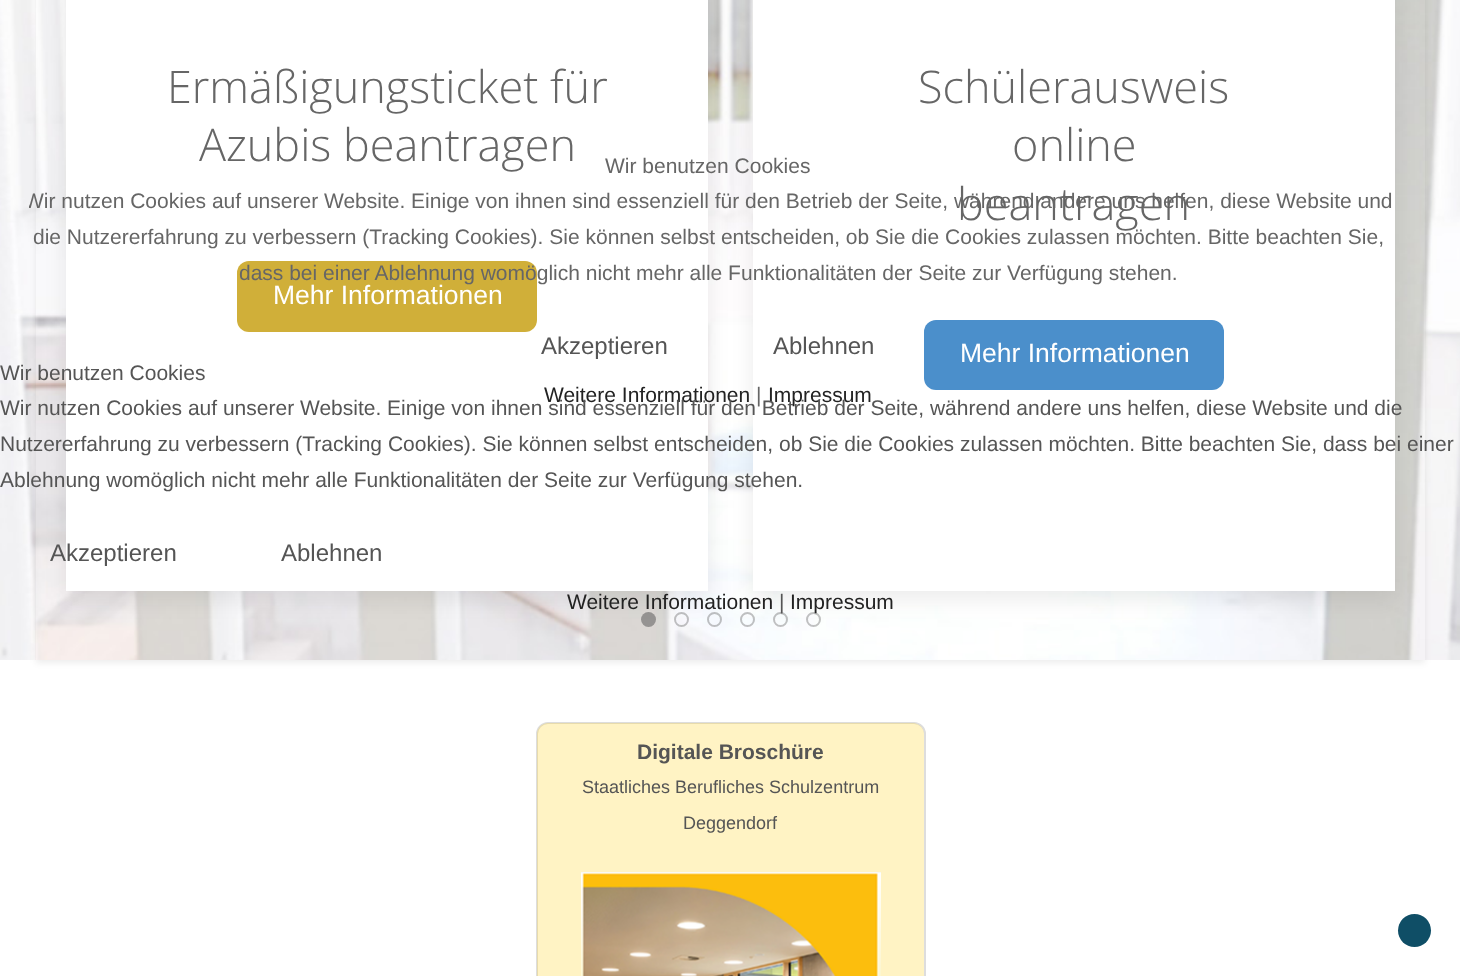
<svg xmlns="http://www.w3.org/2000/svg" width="1460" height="976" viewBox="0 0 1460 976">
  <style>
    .t1 { font: 300 45px Open Sans; fill: #666; }
    .t2 { font: 26.5px Liberation Sans; fill: #fff; }
    .t3 { font: 21px Liberation Sans; fill: #666; }
    .t4 { font: 24px Liberation Sans; fill: #555; }
    .t5 { font: 21px Liberation Sans; fill: #222; }
    .t6 { font: bold 21px Liberation Sans; fill: #555; }
    .t7 { font: 18px Liberation Sans; fill: #555; }
    .t8 { font: 21px Liberation Sans; fill: #555; }
  </style>
  <defs>
    <clipPath id="clip1"><path d="M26 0H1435V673H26ZM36-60H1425V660H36Z" clip-rule="evenodd"/></clipPath>
    <clipPath id="clip2"><rect x="29" y="0" width="1404" height="689"/></clipPath>
  </defs>
  <rect width="100%" height="100%" fill="#fff"/>
  <image x="0" y="0" width="1460" height="660" href="images/1.png"/>
  <g clip-path="url(#clip1)">
    <rect x="36" y="-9" width="1389" height="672" fill="#00000012" filter="blur(3px)"/>
  </g>
  <circle cx="648.5" cy="619.5" r="7.5" fill="#959392"/>
  <circle cx="681.5" cy="619.5" r="6.5" fill="none" stroke="#66666666" stroke-width="2"/>
  <circle cx="714.5" cy="619.5" r="6.5" fill="none" stroke="#66666666" stroke-width="2"/>
  <circle cx="747.5" cy="619.5" r="6.5" fill="none" stroke="#66666666" stroke-width="2"/>
  <rect x="66" y="-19" width="642" height="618" fill="#00000014" filter="blur(11px)"/>
  <rect x="66" y="0" width="642" height="591" fill="#fff"/>
  <text x="167" y="103" class="t1">Ermäßigungsticket für</text>
  <text x="199" y="161" class="t1">Azubis beantragen</text>
  <rect x="237" y="261" width="300" height="71" rx="12" fill="#d0af39"/>
  <text x="273" y="304" class="t2">Mehr Informationen</text>
  <circle cx="780.5" cy="619.5" r="6.5" fill="none" stroke="#66666666" stroke-width="2"/>
  <circle cx="813.5" cy="619.5" r="6.5" fill="none" stroke="#66666666" stroke-width="2"/>
  <rect x="753" y="-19" width="642" height="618" fill="#00000014" filter="blur(11px)"/>
  <rect x="753" y="0" width="642" height="591" fill="#fff"/>
  <text x="605" y="173" class="t3">Wir benutzen Cookies</text>
  <text x="957" y="220" class="t1">beantragen</text>
  <g clip-path="url(#clip2)">
    <text x="24" y="208" class="t3">Wir nutzen Cookies auf unserer Website. Einige von ihnen sind essenziell für den Betrieb der Seite, während andere uns helfen, diese Website und</text>
  </g>
  <text x="33" y="244" class="t3">die Nutzererfahrung zu verbessern (Tracking Cookies). Sie können selbst entscheiden, ob Sie die Cookies zulassen möchten. Bitte beachten Sie,</text>
  <text x="239" y="280" class="t3">dass bei einer Ablehnung womöglich nicht mehr alle Funktionalitäten der Seite zur Verfügung stehen.</text>
  <text x="541" y="354" class="t4">Akzeptieren</text>
  <text x="773" y="354" class="t4">Ablehnen</text>
  <text x="544" y="402" class="t5">Weitere Informationen</text>
  <text x="756" y="402" class="t3">|</text>
  <text x="768" y="402" class="t5">Impressum</text>
  <text x="918" y="103" class="t1">Schülerausweis</text>
  <text x="1012" y="161" class="t1">online</text>
  <rect x="924" y="320" width="300" height="70" rx="12" fill="#4b8fcb"/>
  <text x="960" y="362" class="t2">Mehr Informationen</text>
  <rect x="537" y="723" width="388" height="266" rx="11" fill="none" stroke="#ddd" stroke-width="2"/>
  <path d="M548 723H913C919 723 924 728 924 734V854H537V734C537 728 542 723 548 723Z" fill="#ffd73a4d"/>
  <text x="637" y="759" class="t6">Digitale Broschüre</text>
  <text x="582" y="793" class="t7">Staatliches Berufliches Schulzentrum</text>
  <text x="683" y="829" class="t7">Deggendorf</text>
  <rect x="537" y="854" width="387" height="122" fill="#ffd73a4d"/>
  <image x="581" y="872" width="300" height="104" href="images/2.png"/>
  <text x="0" y="380" class="t8">Wir benutzen Cookies</text>
  <text x="0" y="415" class="t8">Wir nutzen Cookies auf unserer Website. Einige von ihnen sind essenziell für den Betrieb der Seite, während andere uns helfen, diese Website und die</text>
  <text x="0" y="451" class="t8">Nutzererfahrung zu verbessern (Tracking Cookies). Sie können selbst entscheiden, ob Sie die Cookies zulassen möchten. Bitte beachten Sie, dass bei einer</text>
  <text x="0" y="487" class="t8">Ablehnung womöglich nicht mehr alle Funktionalitäten der Seite zur Verfügung stehen.</text>
  <text x="50" y="561" class="t4">Akzeptieren</text>
  <text x="281" y="561" class="t4">Ablehnen</text>
  <text x="567" y="609" class="t5">Weitere Informationen</text>
  <text x="779" y="609" class="t8">|</text>
  <text x="790" y="609" class="t5">Impressum</text>
  <circle cx="1414.5" cy="930.5" r="16.5" fill="#0f4e66"/>
</svg>
